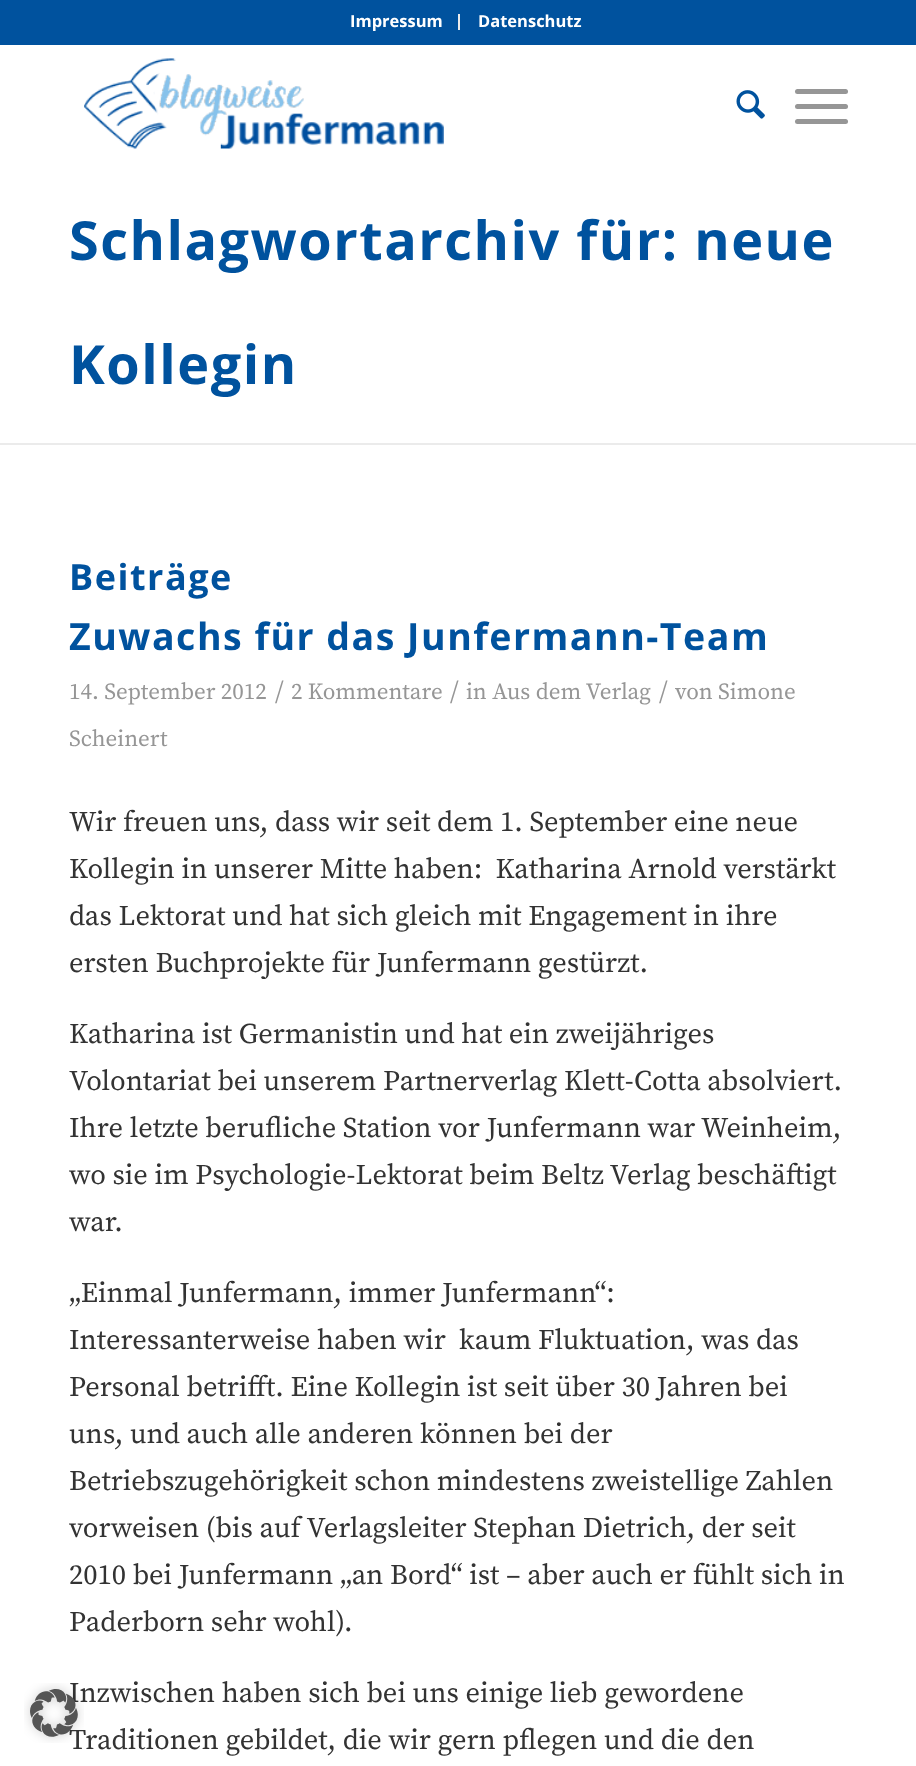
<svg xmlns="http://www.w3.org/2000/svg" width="916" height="1766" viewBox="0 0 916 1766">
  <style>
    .t1 { font: 28.5px Source Serif Pro; fill: #333; }
    .t2 { font: bold 16.5px Open Sans; fill: #fff; }
    .t3 { font: bold 54px Open Sans; letter-spacing: 1.5px; fill: #00529e; }
    .t4 { font: bold 36px Open Sans; letter-spacing: 1.5px; fill: #00529e; }
    .t5 { font: bold 37.5px Open Sans; letter-spacing: 1.5px; fill: #00529e; }
    .t6 { font: 23px Source Serif Pro; fill: #969696; }
    .t7 { font: 26px Source Serif Pro; fill: #969696; }
  </style>
  <rect width="100%" height="100%" fill="#fff"/>
  <text x="69" y="1702" class="t1">Inzwischen haben sich bei uns einige lieb gewordene</text>
  <text x="69" y="1749" class="t1">Traditionen gebildet, die wir gern pflegen und die den</text>
  <image x="24" y="1683" width="60" height="60" href="images/1.png"/>
  <rect x="0" y="0" width="916" height="45" fill="#00529e"/>
  <rect x="458" y="14" width="2" height="16" fill="#ebebeb"/>
  <text x="350" y="27" class="t2">Impressum</text>
  <text x="478" y="27" class="t2">Datenschutz</text>
  <image x="84" y="58" width="360" height="91" href="images/2.png"/>
  <image x="736" y="90" width="29" height="29" href="images/3.png"/>
  <rect x="795" y="104" width="53" height="5" rx="2.5" fill="#969696"/>
  <rect x="795" y="89" width="53" height="5" rx="2.5" fill="#969696"/>
  <rect x="795" y="119" width="53" height="5" rx="2.5" fill="#969696"/>
  <text x="69" y="260" class="t3">Schlagwortarchiv für: neue</text>
  <text x="69" y="384" class="t3">Kollegin</text>
  <rect x="0" y="443" width="916" height="2" fill="#ebebeb"/>
  <text x="69" y="590" class="t4">Beiträge</text>
  <text x="69" y="650" class="t5">Zuwachs für das Junfermann-Team</text>
  <text x="69" y="699" class="t6">14. September 2012</text>
  <text x="275" y="699" class="t7">/</text>
  <text x="291" y="699" class="t6">2 Kommentare</text>
  <text x="450" y="699" class="t7">/</text>
  <text x="466" y="699" class="t6">in Aus dem Verlag</text>
  <text x="659" y="699" class="t7">/</text>
  <text x="675" y="699" class="t6">von Simone</text>
  <text x="69" y="746" class="t6">Scheinert</text>
  <text x="69" y="831" class="t1">Wir freuen uns, dass wir seit dem 1. September eine neue</text>
  <text x="69" y="878" class="t1" xml:space="preserve">Kollegin in unserer Mitte haben:  Katharina Arnold verstärkt</text>
  <text x="69" y="925" class="t1">das Lektorat und hat sich gleich mit Engagement in ihre</text>
  <text x="69" y="972" class="t1">ersten Buchprojekte für Junfermann gestürzt.</text>
  <text x="69" y="1043" class="t1">Katharina ist Germanistin und hat ein zweijähriges</text>
  <text x="69" y="1090" class="t1">Volontariat bei unserem Partnerverlag Klett-Cotta absolviert.</text>
  <text x="69" y="1137" class="t1">Ihre letzte berufliche Station vor Junfermann war Weinheim,</text>
  <text x="69" y="1184" class="t1">wo sie im Psychologie-Lektorat beim Beltz Verlag beschäftigt</text>
  <text x="69" y="1231" class="t1">war.</text>
  <text x="69" y="1302" class="t1">„Einmal Junfermann, immer Junfermann“:</text>
  <text x="69" y="1349" class="t1" xml:space="preserve">Interessanterweise haben wir  kaum Fluktuation, was das</text>
  <text x="69" y="1396" class="t1">Personal betrifft. Eine Kollegin ist seit über 30 Jahren bei</text>
  <text x="69" y="1443" class="t1">uns, und auch alle anderen können bei der</text>
  <text x="69" y="1490" class="t1">Betriebszugehörigkeit schon mindestens zweistellige Zahlen</text>
  <text x="69" y="1537" class="t1">vorweisen (bis auf Verlagsleiter Stephan Dietrich, der seit</text>
  <text x="69" y="1584" class="t1">2010 bei Junfermann „an Bord“ ist – aber auch er fühlt sich in</text>
  <text x="69" y="1631" class="t1">Paderborn sehr wohl).</text>
</svg>
